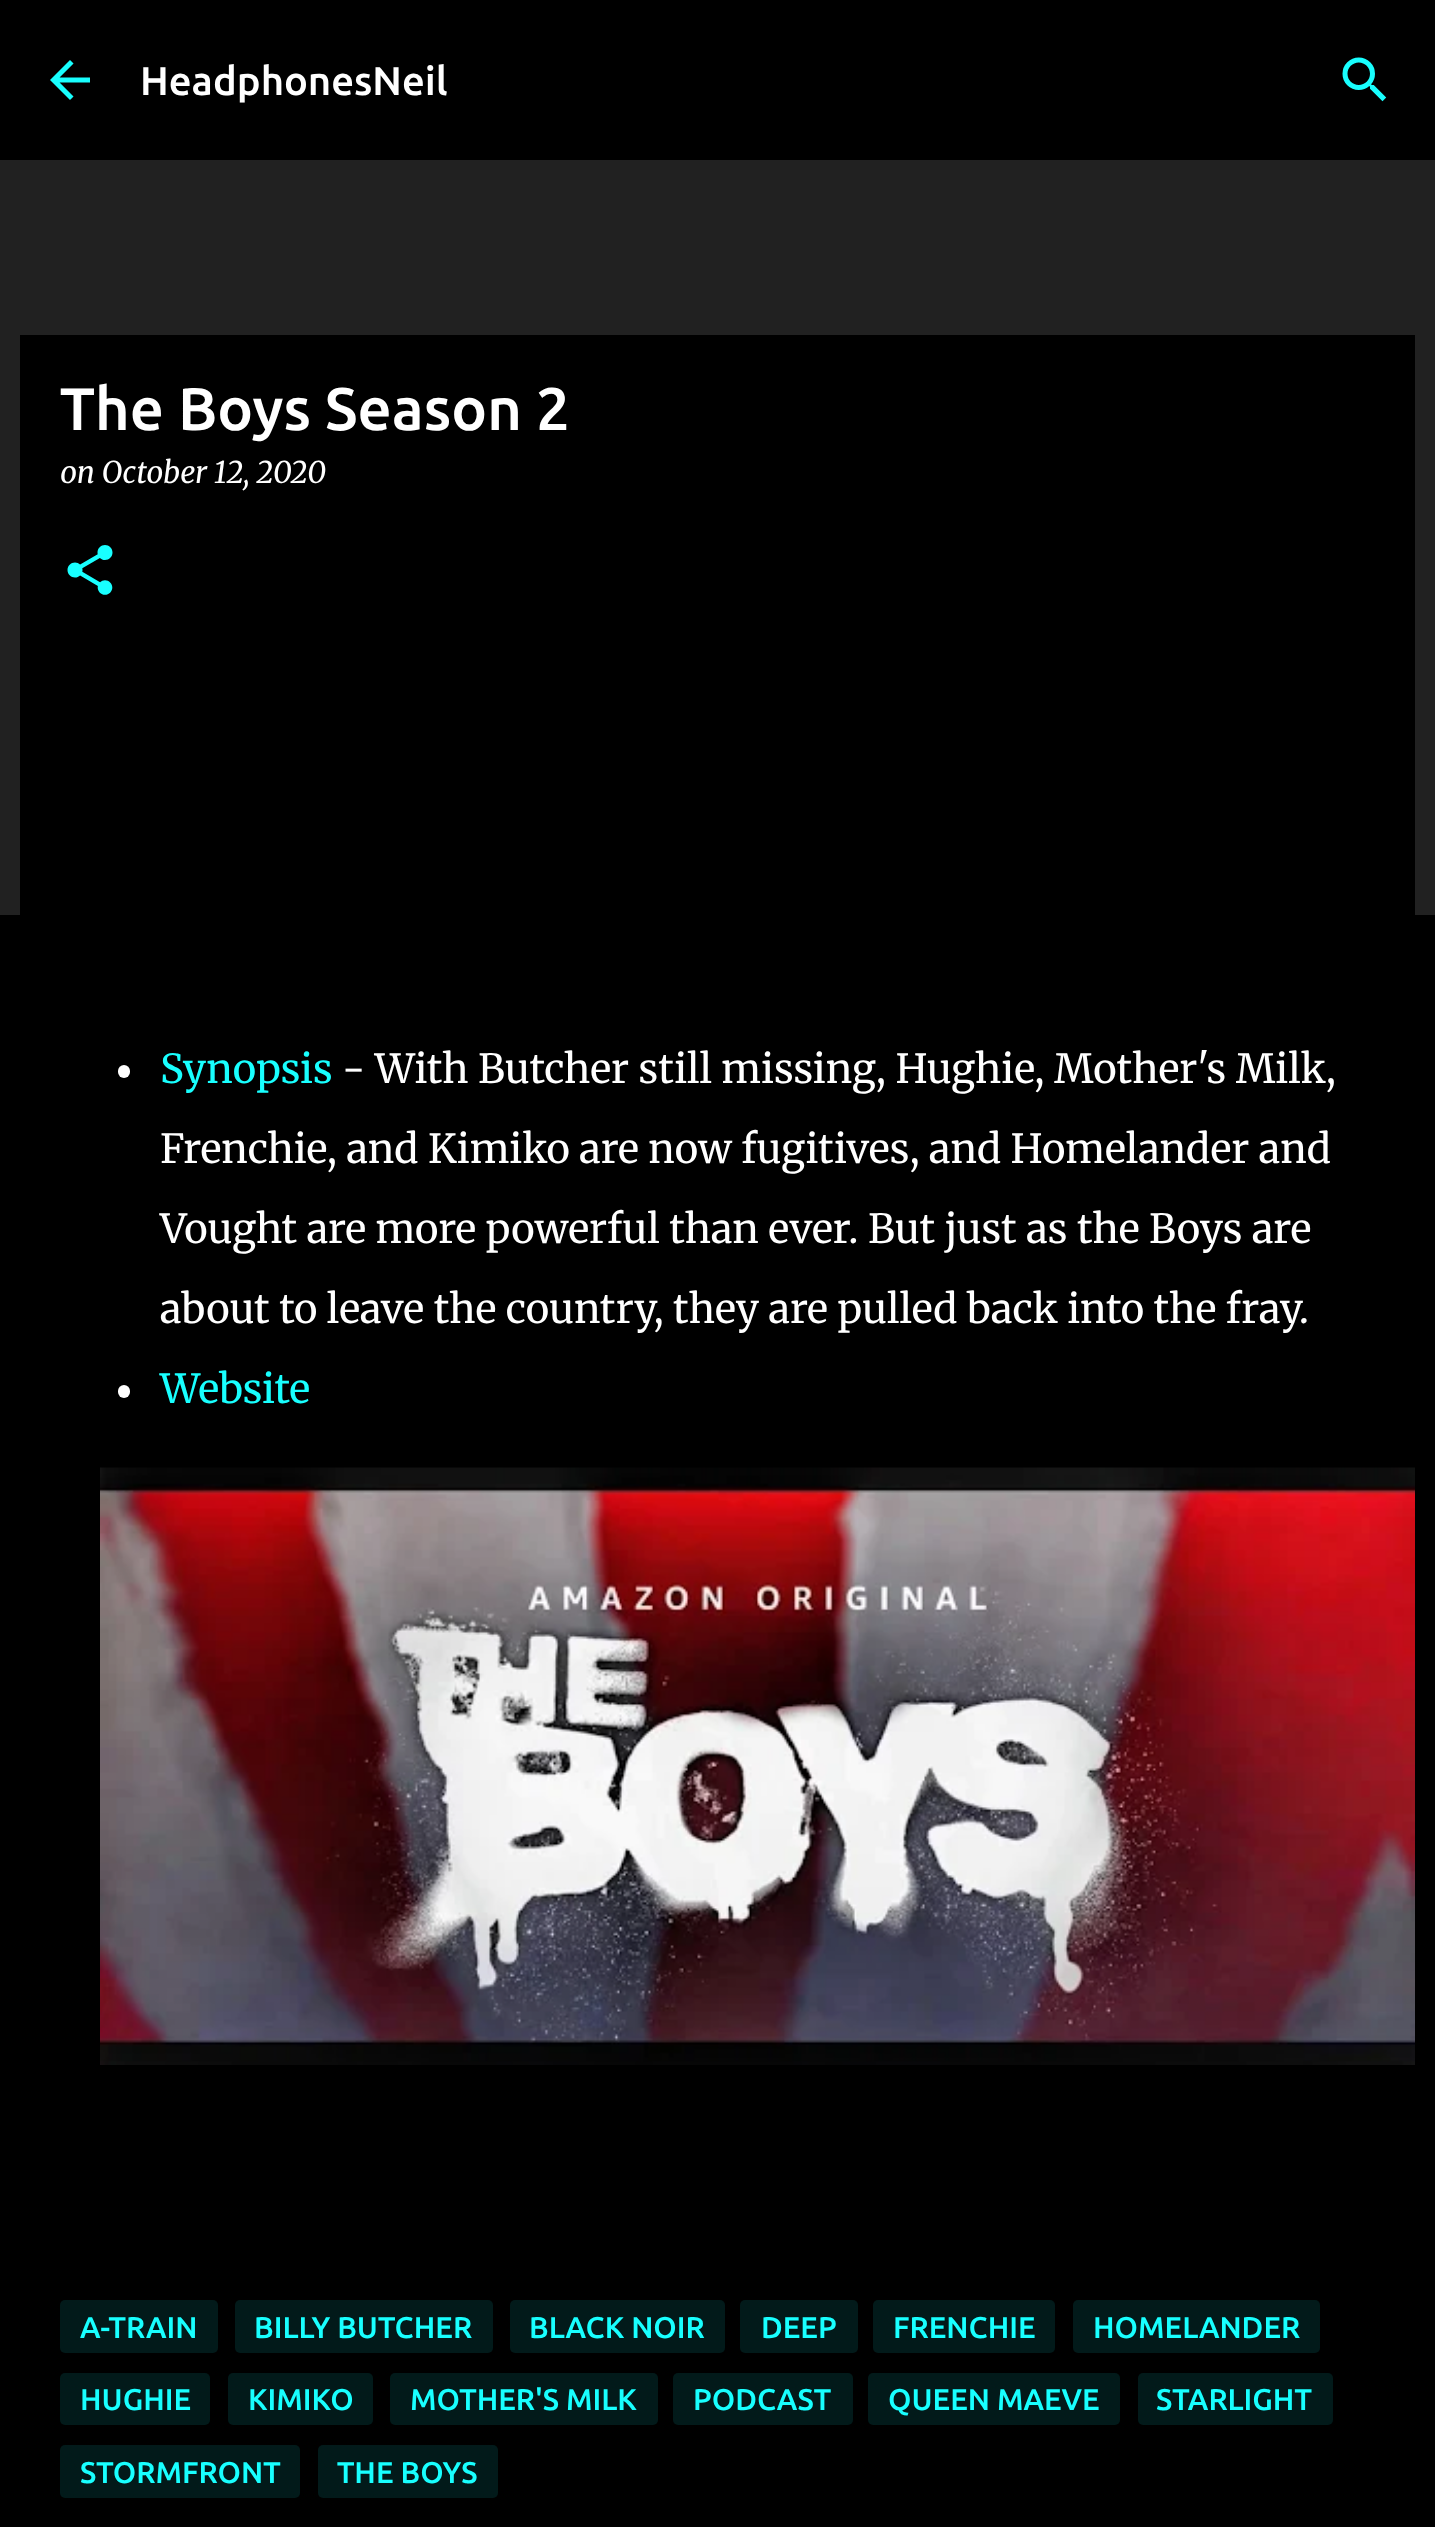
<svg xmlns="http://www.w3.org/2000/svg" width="1435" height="2527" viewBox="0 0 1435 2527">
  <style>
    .t1 { font: 500 40px Ubuntu; fill: #fff; }
    .t2 { font: 500 60px Ubuntu; fill: #fff; }
    .t3 { font: italic 30px Merriweather; fill: #fff; }
    .t4 { font: 300 40px Merriweather; fill: #18ffff; }
    .t5 { font: 300 40px Merriweather; fill: #fff; }
    .t6 { font: 500 30px Ubuntu; fill: #18ffff; }
  </style>
  <rect width="100%" height="100%" fill="#212121"/>
  <rect x="0" y="0" width="1435" height="160" fill="#000"/>
  <image x="50" y="60" width="40" height="40" href="images/1.png"/>
  <text x="140" y="95" class="t1">HeadphonesNeil</text>
  <image x="1342" y="57" width="45" height="45" href="images/2.png"/>
  <rect x="0" y="915" width="1435" height="1612" fill="#000"/>
  <rect x="20" y="335" width="1395" height="580" fill="#000"/>
  <text x="60" y="430" class="t2">The Boys Season 2</text>
  <text x="60" y="483" class="t3">on October 12, 2020</text>
  <image x="67" y="545" width="46" height="50" href="images/3.png"/>
  <rect x="118" y="1065" width="12" height="13" rx="6" fill="#fff"/>
  <text x="160" y="1083" class="t4">Synopsis</text>
  <text x="342" y="1083" class="t5">- With Butcher still missing, Hughie, Mother's Milk,</text>
  <text x="160" y="1163" class="t5">Frenchie, and Kimiko are now fugitives, and Homelander and</text>
  <text x="160" y="1243" class="t5">Vought are more powerful than ever. But just as the Boys are</text>
  <text x="160" y="1323" class="t5">about to leave the country, they are pulled back into the fray.</text>
  <rect x="118" y="1385" width="12" height="13" rx="6" fill="#fff"/>
  <text x="160" y="1403" class="t4">Website</text>
  <image x="100" y="1467" width="1315" height="598" href="images/4.png"/>
  <rect x="60" y="2300" width="158" height="53" rx="5" fill="#021a1a"/>
  <text x="80" y="2338" class="t6">A-TRAIN</text>
  <rect x="235" y="2300" width="258" height="53" rx="5" fill="#021a1a"/>
  <text x="254" y="2338" class="t6">BILLY BUTCHER</text>
  <rect x="510" y="2300" width="215" height="53" rx="5" fill="#021a1a"/>
  <text x="529" y="2338" class="t6">BLACK NOIR</text>
  <rect x="740" y="2300" width="118" height="53" rx="5" fill="#021a1a"/>
  <text x="761" y="2338" class="t6">DEEP</text>
  <rect x="873" y="2300" width="182" height="53" rx="5" fill="#021a1a"/>
  <text x="893" y="2338" class="t6">FRENCHIE</text>
  <rect x="1073" y="2300" width="247" height="53" rx="5" fill="#021a1a"/>
  <text x="1093" y="2338" class="t6">HOMELANDER</text>
  <rect x="60" y="2373" width="150" height="52" rx="5" fill="#021a1a"/>
  <text x="80" y="2410" class="t6">HUGHIE</text>
  <rect x="228" y="2373" width="145" height="52" rx="5" fill="#021a1a"/>
  <text x="248" y="2410" class="t6">KIMIKO</text>
  <rect x="390" y="2373" width="268" height="52" rx="5" fill="#021a1a"/>
  <text x="410" y="2410" class="t6">MOTHER'S MILK</text>
  <rect x="673" y="2373" width="180" height="52" rx="5" fill="#021a1a"/>
  <text x="693" y="2410" class="t6">PODCAST</text>
  <rect x="868" y="2373" width="252" height="52" rx="5" fill="#021a1a"/>
  <text x="888" y="2410" class="t6">QUEEN MAEVE</text>
  <rect x="1138" y="2373" width="195" height="52" rx="5" fill="#021a1a"/>
  <text x="1156" y="2410" class="t6">STARLIGHT</text>
  <rect x="60" y="2445" width="240" height="53" rx="5" fill="#021a1a"/>
  <text x="80" y="2483" class="t6">STORMFRONT</text>
  <rect x="318" y="2445" width="180" height="53" rx="5" fill="#021a1a"/>
  <text x="337" y="2483" class="t6">THE BOYS</text>
</svg>
